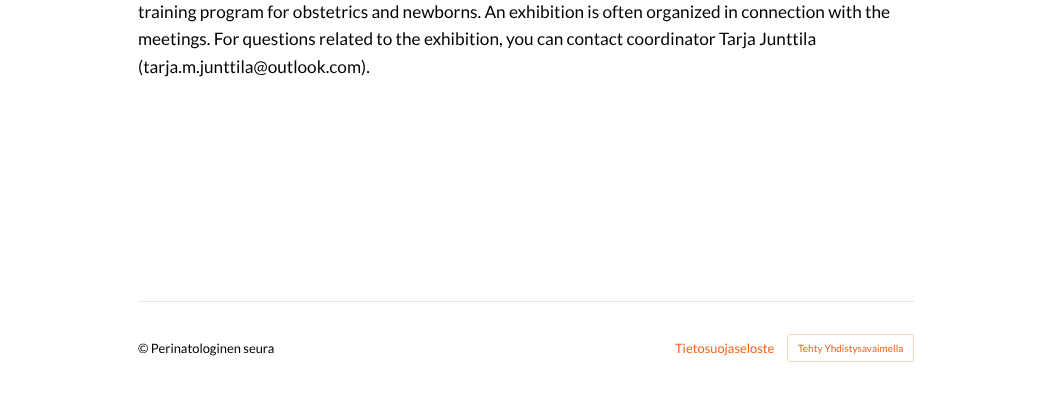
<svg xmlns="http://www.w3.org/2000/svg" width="1052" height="401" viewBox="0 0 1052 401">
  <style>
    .t1 { font: 17.2px Lato; fill: #000; }
    .t2 { font: 12.9px Lato; fill: #000; }
    .t3 { font: 12.9px Lato; fill: #f26522; }
    .t4 { font: 10px Lato; fill: #f26522; }
  </style>
  <rect width="100%" height="100%" fill="#fff"/>
  <text x="138" y="18" class="t1">training program for obstetrics and newborns. An exhibition is often organized in connection with the</text>
  <text x="138" y="45" class="t1">meetings. For questions related to the exhibition, you can contact coordinator Tarja Junttila</text>
  <text x="138" y="73" class="t1">(tarja.m.junttila@outlook.com).</text>
  <rect x="138" y="301" width="776" height="1" fill="#e6e6e6"/>
  <text x="138" y="353" class="t2">© Perinatologinen seura</text>
  <text x="675" y="353" class="t3">Tietosuojaseloste</text>
  <rect x="787.5" y="334.5" width="126" height="27" rx="2.5" fill="none" stroke="#fbd1bd"/>
  <text x="798" y="352" class="t4">Tehty Yhdistysavaimella</text>
</svg>
